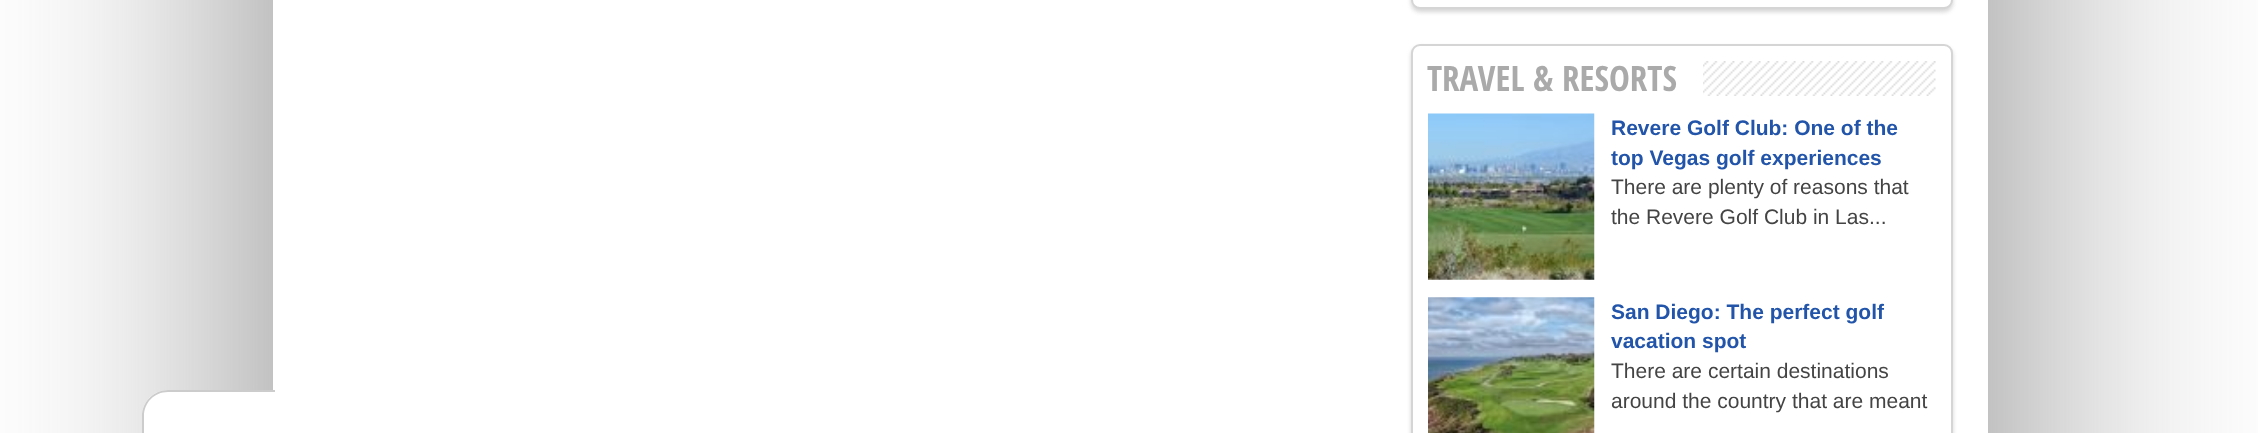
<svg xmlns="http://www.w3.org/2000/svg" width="2258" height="433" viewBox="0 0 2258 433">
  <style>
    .t1 { font: bold 35px Open Sans Condensed; fill: #aaa; }
    .t2 { font: bold 21px Liberation Sans; fill: #25a; }
    .t3 { font: 21px Liberation Sans; fill: #444; }
  </style>
  <defs>
    <clipPath id="clip1"><path d="M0 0H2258V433H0ZM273-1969H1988V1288H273Z" clip-rule="evenodd"/></clipPath>
  </defs>
  <rect width="100%" height="100%" fill="#fff"/>
  <g clip-path="url(#clip1)">
    <rect x="268" y="-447" width="1725" height="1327" fill="#888" filter="blur(149px)"/>
  </g>
  <rect x="1411" y="-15" width="542" height="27" rx="9" fill="#d5d5d5" filter="blur(2px)"/>
  <rect x="1412" y="-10" width="540" height="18" rx="8" fill="#fff" stroke="#d5d5d5" stroke-width="2"/>
  <rect x="1411" y="47" width="542" height="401" rx="9" fill="#d5d5d5" filter="blur(2px)"/>
  <rect x="1412" y="45" width="540" height="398" rx="8" fill="#fff" stroke="#d5d5d5" stroke-width="2"/>
  <image x="1703" y="61" width="233" height="35" href="images/1.png"/>
  <text x="1427" y="91" class="t1">TRAVEL &amp; RESORTS</text>
  <image x="1428" y="113" width="167" height="167" href="images/2.png"/>
  <text x="1611" y="135" class="t2">Revere Golf Club: One of the</text>
  <text x="1611" y="165" class="t2">top Vegas golf experiences</text>
  <text x="1611" y="194" class="t3">There are plenty of reasons that</text>
  <text x="1611" y="224" class="t3">the Revere Golf Club in Las...</text>
  <image x="1428" y="297" width="167" height="136" href="images/3.png"/>
  <text x="1611" y="319" class="t2">San Diego: The perfect golf</text>
  <text x="1611" y="348" class="t2">vacation spot</text>
  <text x="1611" y="378" class="t3">There are certain destinations</text>
  <text x="1611" y="408" class="t3">around the country that are meant</text>
  <path d="M168 390H275V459H168C153.5 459 142 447.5 142 433V416C142 401.5 153.5 390 168 390Z" fill="#fff"/>
  <path d="M168 390H275V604H168C154 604 142 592 142 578V416C142 402 154 390 168 390ZM168 392H275V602H168C154 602 144 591 144 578V416C144 403 154 392 168 392Z" fill="#ccc" fill-rule="evenodd"/>
</svg>
